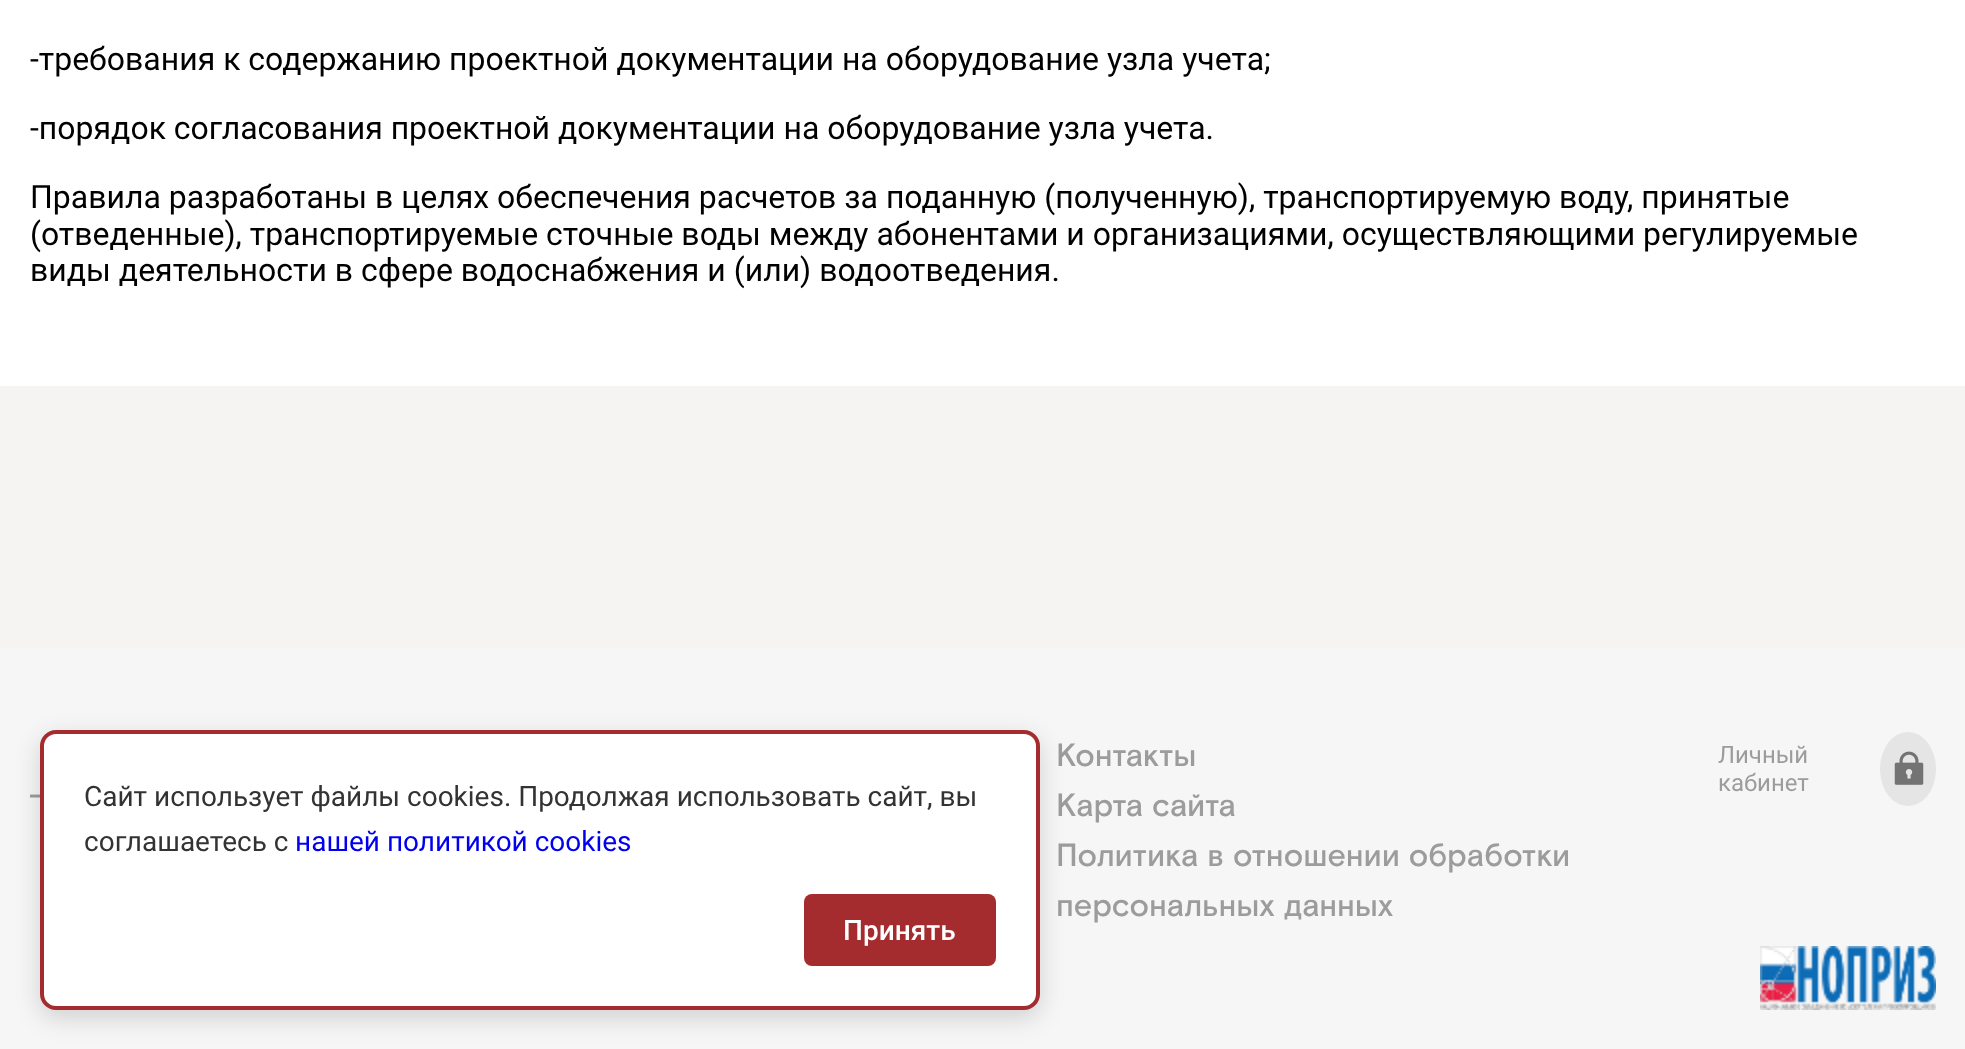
<svg xmlns="http://www.w3.org/2000/svg" width="1965" height="1049" viewBox="0 0 1965 1049">
  <style>
    .t1 { font: 32px Roboto; fill: #000; }
    .t2 { font: 500 32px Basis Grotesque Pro; fill: #9c9c9c; }
    .t3 { font: 24px Roboto; fill: #9c9c9c; }
    .t4 { font: 600 32px Cabin Condensed; fill: #9c9c9c; }
    .t5 { font: 28px Roboto; fill: #333; }
    .t6 { font: 28px Roboto; fill: #00e; }
    .t7 { font: 500 28px Roboto; fill: #fff; }
  </style>
  <rect width="100%" height="100%" fill="#fff"/>
  <text x="30" y="70" class="t1">-требования к содержанию проектной документации на оборудование узла учета;</text>
  <text x="30" y="139" class="t1">-порядок согласования проектной документации на оборудование узла учета.</text>
  <text x="30" y="208" class="t1">Правила разработаны в целях обеспечения расчетов за поданную (полученную), транспортируемую воду, принятые</text>
  <text x="30" y="245" class="t1">(отведенные), транспортируемые сточные воды между абонентами и организациями, осуществляющими регулируемые</text>
  <text x="30" y="281" class="t1">виды деятельности в сфере водоснабжения и (или) водоотведения.</text>
  <rect x="0" y="386" width="1965" height="262" fill="#f6f3f3"/>
  <rect x="0" y="648" width="1965" height="401" fill="#f6f6f6"/>
  <text x="1056" y="766" class="t2">Контакты</text>
  <text x="1056" y="816" class="t2">Карта сайта</text>
  <text x="1056" y="866" class="t2">Политика в отношении обработки</text>
  <text x="1056" y="916" class="t2">персональных данных</text>
  <text x="1718" y="763" class="t3">Личный</text>
  <text x="1718" y="791" class="t3">кабинет</text>
  <ellipse cx="1908" cy="769" rx="28" ry="37" fill="#e5e5e5"/>
  <image x="1894" y="751" width="30" height="34" href="images/1.png"/>
  <image x="1760" y="946" width="176" height="64" href="images/2.png"/>
  <text x="30" y="806" class="t4">–</text>
  <rect x="40" y="738" width="1000" height="280" rx="16" fill="#00000026" filter="blur(12px)"/>
  <rect x="42" y="732" width="996" height="276" rx="14" fill="#fff" stroke="#a42c2e" stroke-width="4"/>
  <text x="84" y="806" class="t5">Сайт использует файлы cookies. Продолжая использовать сайт, вы</text>
  <text x="84" y="851" class="t5">соглашаетесь с</text>
  <text x="295" y="851" class="t6">нашей политикой cookies</text>
  <rect x="804" y="894" width="192" height="72" rx="8" fill="#a42c2e"/>
  <text x="843" y="940" class="t7">Принять</text>
</svg>
